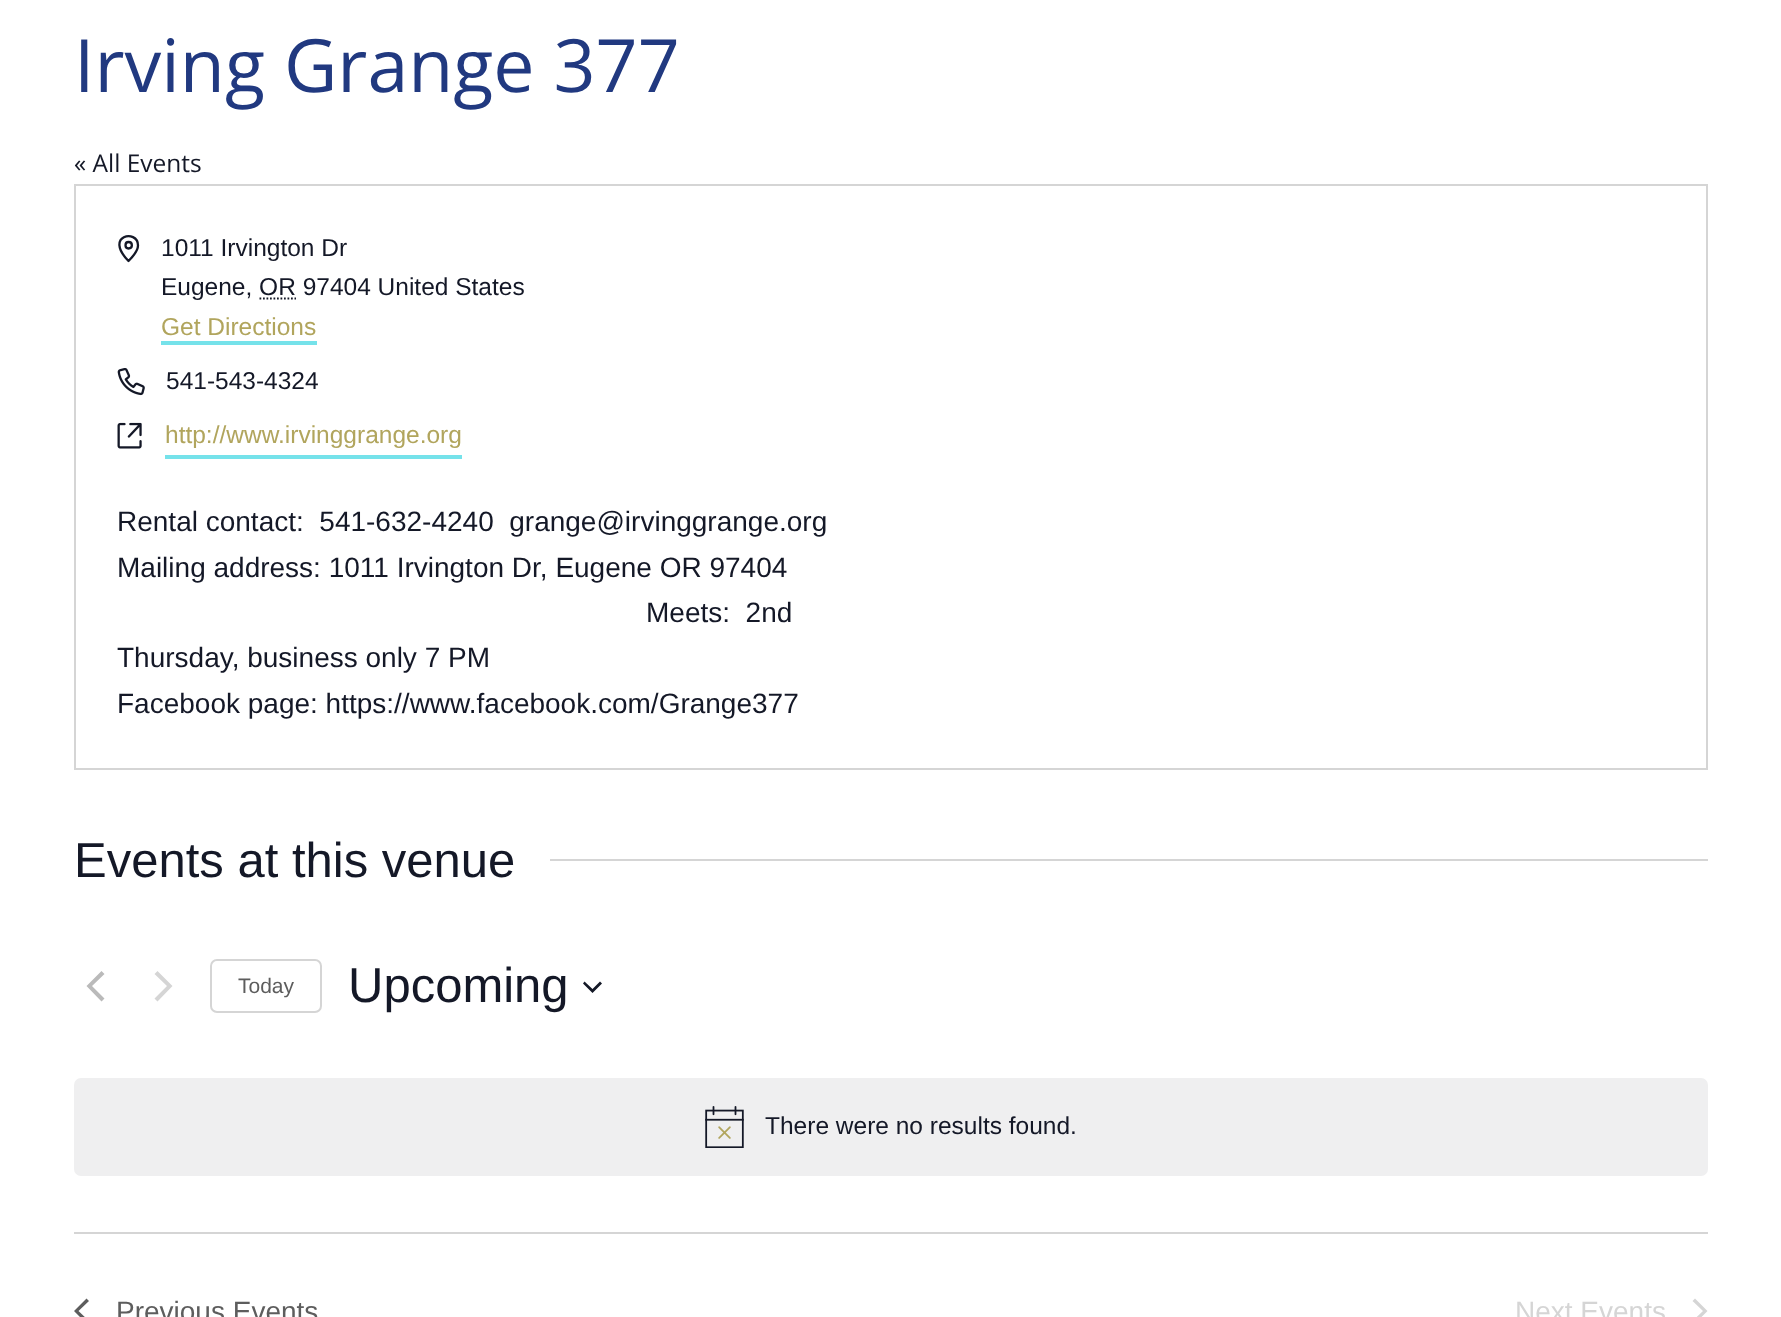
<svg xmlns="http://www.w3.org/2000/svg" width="1781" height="1317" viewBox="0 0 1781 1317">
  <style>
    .t1 { font: 73.5px Open Sans; fill: #213980; }
    .t2 { font: 24.5px Open Sans; fill: #141827; }
    .t3 { font: 24.5px Liberation Sans; fill: #141827; }
    .t4 { font: 24.5px Liberation Sans; fill: #b1a55d; }
    .t5 { font: 28px Liberation Sans; fill: #141827; }
    .t6 { font: 49px Liberation Sans; fill: #141827; }
    .t7 { font: 21px Liberation Sans; fill: #5d5d5d; }
    .t8 { font: 28px Liberation Sans; fill: #5d5d5d; }
    .t9 { font: 28px Liberation Sans; fill: #d5d5d5; }
  </style>
  <rect width="100%" height="100%" fill="#fff"/>
  <text x="74" y="92" class="t1">Irving Grange 377</text>
  <text x="74" y="172" class="t2">« All Events</text>
  <rect x="75" y="185" width="1632" height="584" fill="none" stroke="#d5d5d5" stroke-width="2"/>
  <path d="M138 245.5C138 251.5 128.5 261 128.5 261C103.5 235.5 138 228.5 138 245.5ZM128.5 248.5C133 248.5 133 242 128.5 242C124.5 242 124.5 248.5 128.5 248.5Z" fill="none" stroke="#141827" stroke-width="2.3" stroke-linecap="round" stroke-linejoin="round"/>
  <text x="161" y="256" class="t3">1011 Irvington Dr</text>
  <text x="161" y="295" class="t3">Eugene, OR 97404 United States</text>
  <path d="M259.5 298.5H296" fill="none" stroke="#141827" stroke-width="1.8" stroke-dasharray="1.75 1.75"/>
  <text x="161" y="335" class="t4">Get Directions</text>
  <rect x="161" y="341" width="156" height="4" fill="#75e2ea"/>
  <image x="117" y="368" width="28" height="28" href="images/1.png"/>
  <text x="166" y="389" class="t3">541-543-4324</text>
  <image x="117" y="422" width="25" height="27" href="images/2.png"/>
  <rect x="165" y="455" width="297" height="4" fill="#75e2ea"/>
  <text x="165" y="443" class="t4">http://www.irvinggrange.org</text>
  <text x="117" y="531" class="t5" xml:space="preserve">Rental contact:  541-632-4240  grange@irvinggrange.org</text>
  <text x="117" y="577" class="t5">Mailing address: 1011 Irvington Dr, Eugene OR 97404</text>
  <text x="646" y="622" class="t5" xml:space="preserve">Meets:  2nd</text>
  <text x="117" y="667" class="t5">Thursday, business only 7 PM</text>
  <text x="117" y="713" class="t5">Facebook page: https://www.facebook.com/Grange377</text>
  <text x="74" y="877" class="t6">Events at this venue</text>
  <rect x="550" y="859" width="1158" height="2" fill="#d5d5d5"/>
  <path d="M104.5 998.5L101.5 1001.5L86.5 986L101.5 971L104.5 974L92 986Z" fill="#bababa"/>
  <path d="M154.5 974L157.5 971L172.5 986L157.5 1001.5L154.5 998.5L167 986Z" fill="#d5d5d5"/>
  <rect x="211" y="960" width="110" height="52" rx="6" fill="none" stroke="#d5d5d5" stroke-width="2"/>
  <text x="238" y="993" class="t7">Today</text>
  <text x="348" y="1002" class="t6">Upcoming</text>
  <path d="M584.5 981.5L592.5 989L600 981.5L602 983.5L592.5 993L583 983.5Z" fill="#141827" fill-rule="evenodd"/>
  <rect x="74" y="1078" width="1634" height="98" rx="7" fill="#efeff0"/>
  <image x="705" y="1106" width="39" height="42" href="images/3.png"/>
  <text x="765" y="1134" class="t3">There were no results found.</text>
  <rect x="74" y="1232" width="1634" height="2" fill="#d5d5d5"/>
  <path d="M89 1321L86.5 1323.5L74 1311L86.5 1298.5L89 1301L78.5 1311Z" fill="#5d5d5d"/>
  <text x="116" y="1321" class="t8">Previous Events</text>
  <text x="1515" y="1321" class="t9">Next Events</text>
  <path d="M1692.5 1301L1695 1298.5L1707.5 1311L1695 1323.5L1692.5 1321L1703 1311Z" fill="#d5d5d5"/>
</svg>
